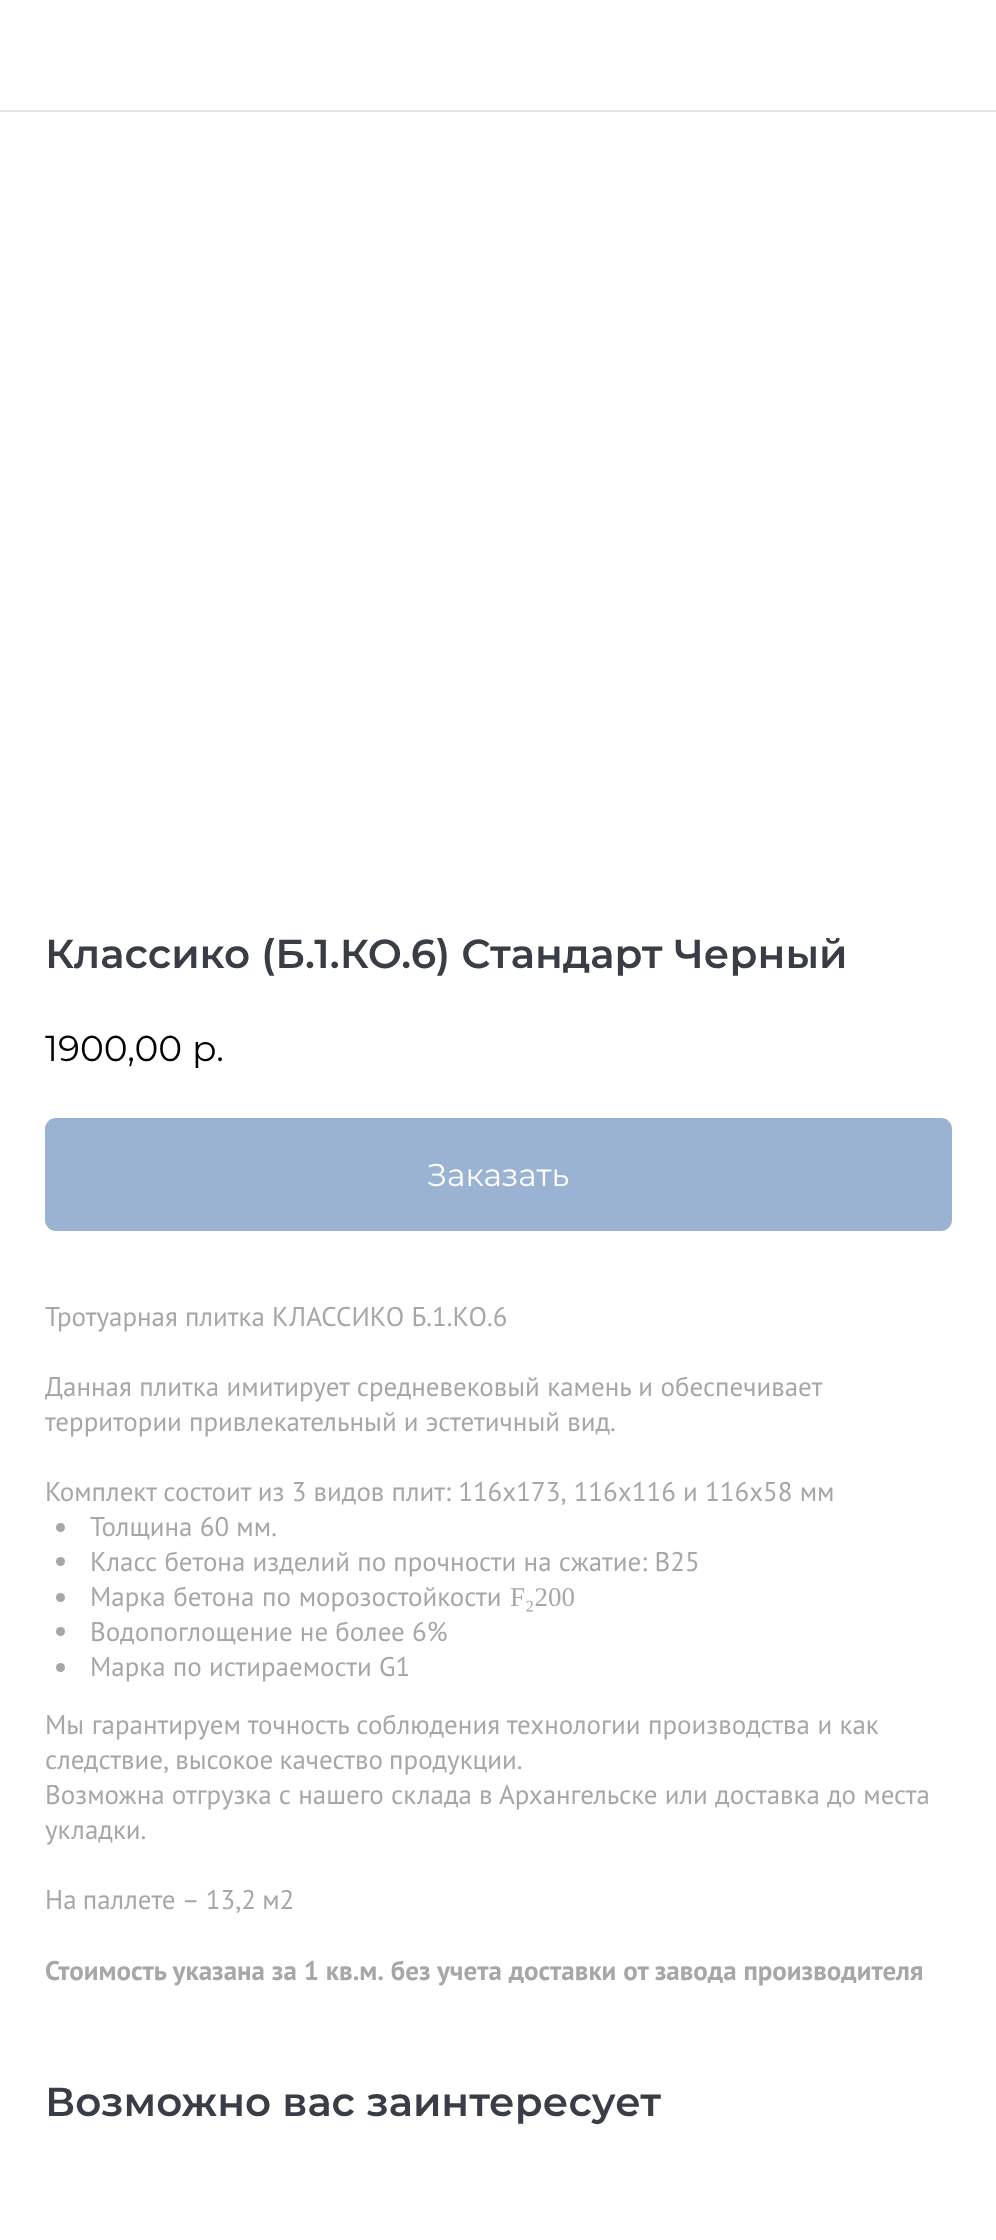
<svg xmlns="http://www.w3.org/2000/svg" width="996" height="2240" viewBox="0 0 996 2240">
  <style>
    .t1 { font: 600 40.5px Montserrat; fill: #393e46; }
    .t2 { font: 36px Montserrat; fill: #000; }
    .t3 { font: 31.5px Montserrat; fill: #fff; }
    .t4 { font: 27px PT Sans; fill: #a6a7a8; }
    .t5 { font: 27px Liberation Serif; fill: #a6a7a8; }
    .t6 { font: bold 27px PT Sans; fill: #a6a7a8; }
  </style>
  <rect width="100%" height="100%" fill="#fff"/>
  <rect x="0" y="110" width="996" height="2" fill="#e6e6e6"/>
  <text x="45" y="968" class="t1">Классико (Б.1.КО.6) Стандарт Черный</text>
  <text x="45" y="1061" class="t2">1900,00</text>
  <text x="192" y="1061" class="t2">р.</text>
  <rect x="46" y="1119" width="905" height="111" rx="10" fill="#9bb3d3" stroke="#9bb3d3" stroke-width="2"/>
  <text x="427" y="1186" class="t3">Заказать</text>
  <text x="45" y="1326" class="t4">Тротуарная плитка КЛАССИКО Б.1.КО.6</text>
  <text x="45" y="1396" word-spacing="0.25" class="t4">Данная плитка имитирует средневековый камень и обеспечивает</text>
  <text x="45" y="1431" class="t4">территории привлекательный и эстетичный вид.</text>
  <text x="45" y="1501" class="t4">Комплект состоит из 3 видов плит: 116х173, 116х116 и 116х58 мм</text>
  <circle cx="60.5" cy="1527.5" r="4.5" fill="#a6a7a8"/>
  <text x="90" y="1536" class="t4">Толщина 60 мм.</text>
  <circle cx="60.5" cy="1561.5" r="4.5" fill="#a6a7a8"/>
  <text x="90" y="1571" class="t4">Класс бетона изделий по прочности на сжатие: В25</text>
  <circle cx="60.5" cy="1597.5" r="4.5" fill="#a6a7a8"/>
  <text x="90" y="1606" word-spacing="0.5" class="t4">Марка бетона по морозостойкости</text>
  <text x="510" y="1606" class="t5">F₂200</text>
  <circle cx="60.5" cy="1631.5" r="4.5" fill="#a6a7a8"/>
  <text x="90" y="1641" class="t4">Водопоглощение не более 6%</text>
  <circle cx="60.5" cy="1667.5" r="4.5" fill="#a6a7a8"/>
  <text x="90" y="1676" class="t4">Марка по истираемости G1</text>
  <text x="45" y="1734" word-spacing="0.25" class="t4">Мы гарантируем точность соблюдения технологии производства и как</text>
  <text x="45" y="1769" word-spacing="-1" class="t4">следствие, высокое качество продукции.</text>
  <text x="45" y="1804" class="t4">Возможна отгрузка с нашего склада в Архангельске или доставка до места</text>
  <text x="45" y="1839" class="t4">укладки.</text>
  <text x="45" y="1909" word-spacing="-1" class="t4">На паллете – 13,2 м2</text>
  <text x="45" y="1980" class="t6">Стоимость указана за 1 кв.м. без учета доставки от завода производителя</text>
  <text x="45" y="2116" class="t1">Возможно вас заинтересует</text>
</svg>
